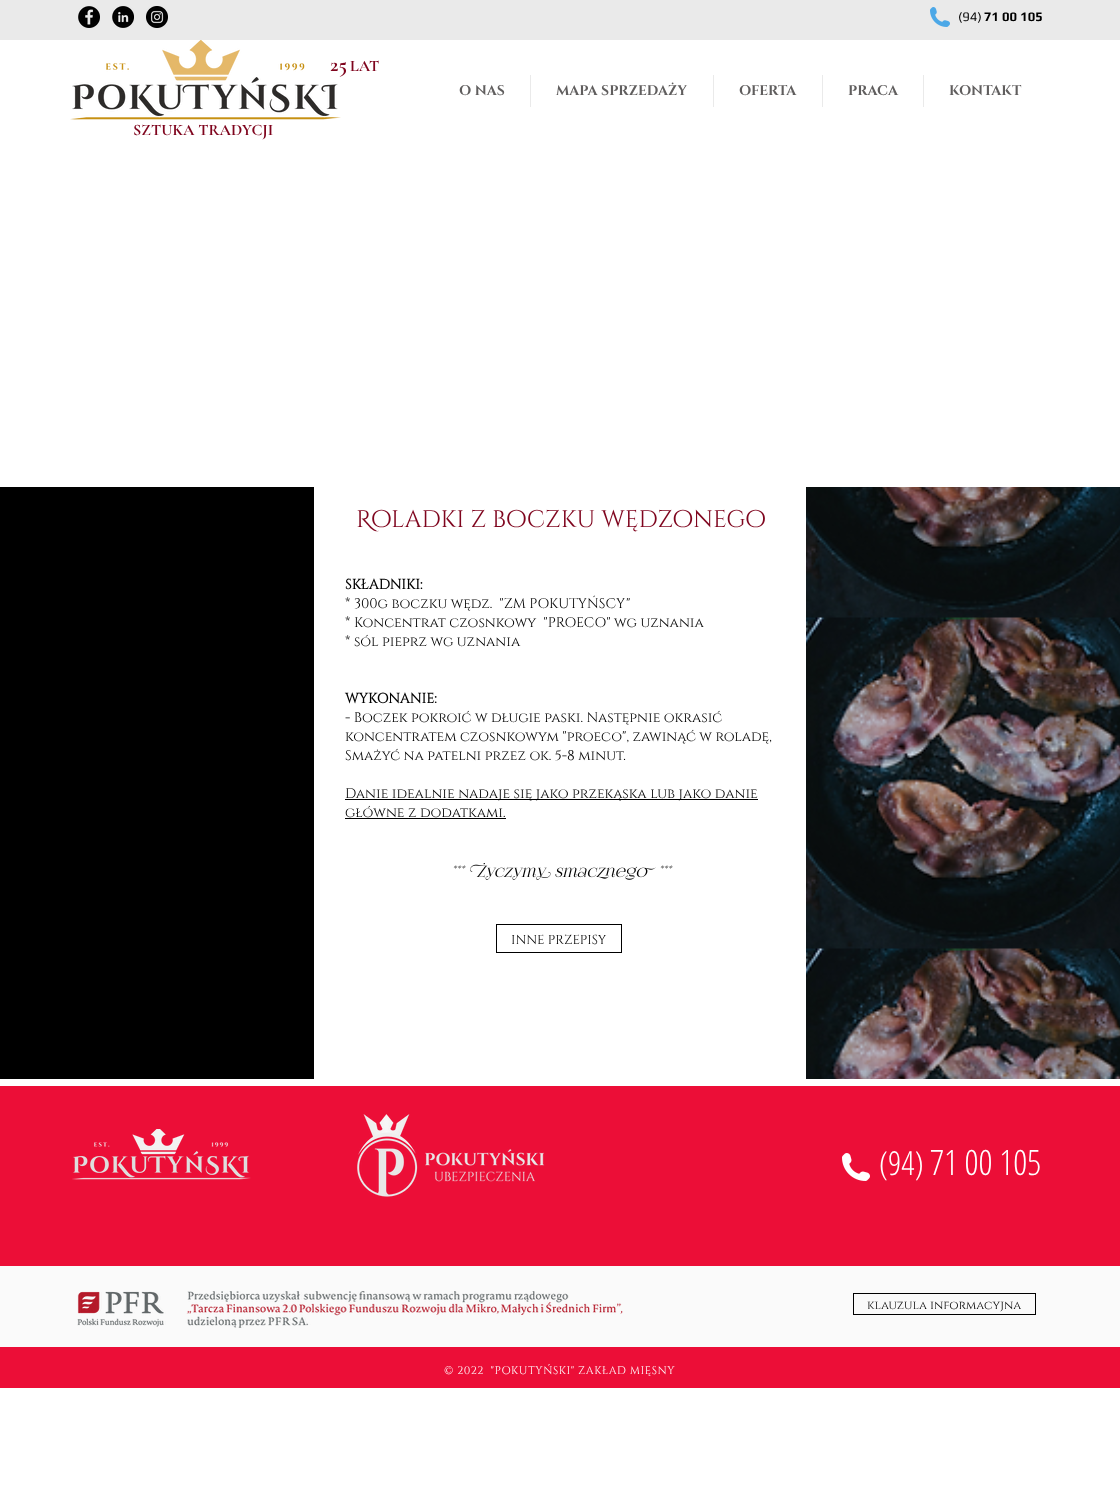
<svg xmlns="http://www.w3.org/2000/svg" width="1120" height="1502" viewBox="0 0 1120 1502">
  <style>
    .t1 { font: 13px Play; fill: #000; }
    .t2 { font: bold 13px Play; fill: #000; }
    .t3 { font: bold 21px Cormorant Garamond; fill: #7f051e; }
    .t4 { font: bold 16px Cormorant Garamond; fill: #7f051e; }
    .t5 { font: bold 14px 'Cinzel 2'; fill: #605e5e; }
    .t6 { font: 24px Cinzel Decorative; fill: #7f051e; }
    .t7 { font: bold 14px Cinzel; fill: #000; }
    .t8 { font: 14px Cinzel; fill: #000; }
    .t9 { font: 13px Cinzel; fill: #000; }
    .t10 { font: 300 33px Open Sans Condensed; fill: #fff; }
    .t11 { font: 300 35px Open Sans Condensed; fill: #fff; }
    .t12 { font: 12px Cinzel; fill: #000; }
    .t13 { font: 11px Cinzel; letter-spacing: 0.55px; fill: #fff; }
  </style>
  <rect width="100%" height="100%" fill="#fff"/>
  <rect x="0" y="0" width="1120" height="40" fill="#eaeaea"/>
  <image x="78" y="6" width="22" height="22" href="images/1.png"/>
  <image x="112" y="6" width="22" height="22" href="images/2.png"/>
  <image x="146" y="6" width="22" height="22" href="images/3.png"/>
  <image x="930" y="7" width="20" height="20" href="images/4.png"/>
  <text x="958" y="21" class="t1">(94)</text>
  <text x="984" y="21" class="t2">71 00 105</text>
  <image x="70" y="40" width="271" height="80" href="images/5.png"/>
  <text x="330" y="71" class="t3">25</text>
  <text x="350" y="71" class="t4">LAT</text>
  <text x="459" y="95" class="t5">O NAS</text>
  <rect x="530" y="75" width="1" height="32" fill="#eaeaea"/>
  <text x="556" y="95" class="t5">MAPA SPRZEDAŻY</text>
  <rect x="713" y="75" width="1" height="32" fill="#eaeaea"/>
  <text x="739" y="95" class="t5">OFERTA</text>
  <rect x="822" y="75" width="1" height="32" fill="#eaeaea"/>
  <text x="848" y="95" class="t5">PRACA</text>
  <rect x="923" y="75" width="1" height="32" fill="#eaeaea"/>
  <text x="949" y="95" class="t5">KONTAKT</text>
  <text x="133" y="135" class="t4">SZTUKA TRADYCJI</text>
  <rect x="0" y="487" width="314" height="592" fill="#000"/>
  <text x="356" y="527" class="t6">Roladki z boczku wędzonego</text>
  <text x="345" y="589" class="t7">SKŁADNIKI:</text>
  <text x="345" y="608" class="t8" xml:space="preserve">* 300g boczku wędz.  "ZM POKUTYŃSCY"</text>
  <text x="345" y="627" class="t8" xml:space="preserve">* Koncentrat czosnkowy  "PROECO" wg uznania</text>
  <text x="345" y="646" class="t8">* sól pieprz wg uznania</text>
  <text x="345" y="703" class="t7">WYKONANIE:</text>
  <text x="345" y="722" class="t8">- Boczek pokroić w długie paski. Następnie okrasić</text>
  <text x="345" y="741" class="t8">koncentratem czosnkowym "proeco", zawinąć w roladę,</text>
  <text x="345" y="760" class="t8">Smażyć na patelni przez ok. 5-8 minut.</text>
  <rect x="345" y="799" width="413" height="1" fill="#000"/>
  <text x="345" y="798" class="t8">Danie idealnie nadaje się jako przekąska lub jako danie</text>
  <text x="345" y="817" class="t8">główne z dodatkami.</text>
  <rect x="345" y="818" width="161" height="1" fill="#000"/>
  <image x="453" y="863" width="220" height="17" href="images/6.png"/>
  <rect x="496.5" y="924.5" width="125" height="28" fill="none" stroke="#000"/>
  <text x="511" y="944" class="t9">INNE PRZEPISY</text>
  <image x="806" y="487" width="314" height="592" href="images/7.png"/>
  <rect x="0" y="1086" width="1120" height="302" fill="#ec0e37"/>
  <image x="72" y="1129" width="179" height="51" href="images/8.png"/>
  <image x="357" y="1114" width="61" height="83" href="images/9.png"/>
  <image x="425" y="1149" width="120" height="33" href="images/10.png"/>
  <image x="842" y="1153" width="28" height="28" href="images/11.png"/>
  <text x="879" y="1175" class="t10">(94)</text>
  <text x="930" y="1175" class="t11">71 00 105</text>
  <rect x="0" y="1266" width="1120" height="81" fill="#fafafa"/>
  <image x="77" y="1291" width="546" height="37" href="images/12.png"/>
  <rect x="853.5" y="1293.5" width="182" height="21" fill="none" stroke="#000"/>
  <text x="867" y="1309" class="t12">klauzula informacyjna</text>
  <text x="444" y="1374" class="t13" xml:space="preserve">© 2022  "POKUTYŃSKI" ZAKŁAD MIĘSNY</text>
</svg>
